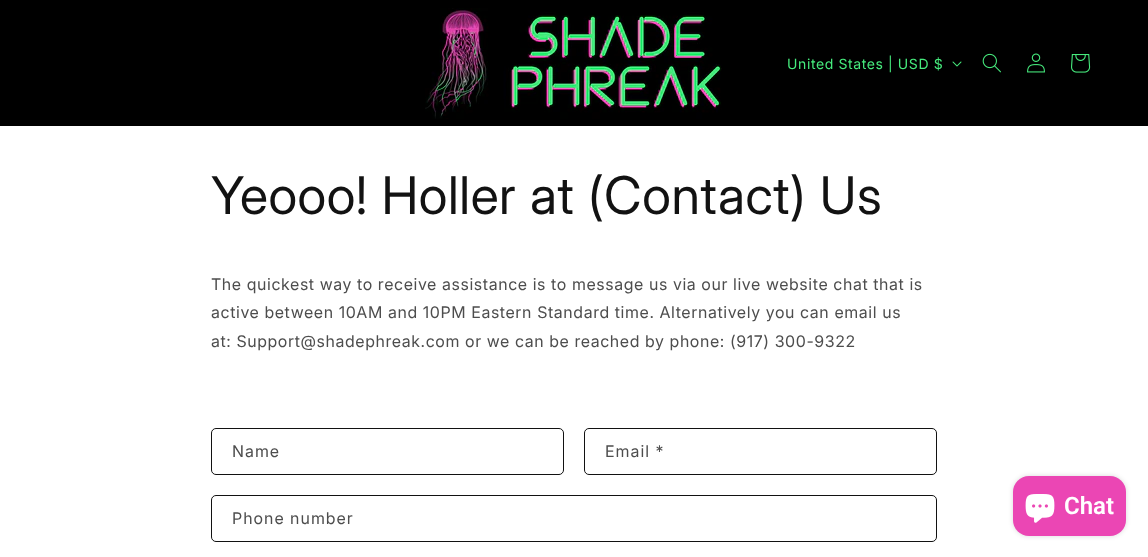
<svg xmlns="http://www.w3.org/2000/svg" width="1148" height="557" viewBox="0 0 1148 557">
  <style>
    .t1 { font: 14px 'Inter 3'; letter-spacing: 0.6px; fill: #46eb7d; }
    .t2 { font: 52px Inter; letter-spacing: 0.6px; fill: #121212; }
    .t3 { font: 16px 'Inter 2'; letter-spacing: 0.6px; fill: #4d4d4d; }
    .t4 { font: 16px 'Inter 2'; letter-spacing: 1px; fill: #4d4d4d; }
    .t5 { font: 600 24px Roboto; fill: #fff; }
  </style>
  <rect width="100%" height="100%" fill="#fff"/>
  <rect x="0" y="0" width="1148" height="126" fill="#000"/>
  <image x="425" y="8" width="297" height="111" href="images/1.png"/>
  <text x="787" y="69" class="t1">United States | USD $</text>
  <image x="952" y="61" width="10" height="6" href="images/2.png"/>
  <image x="982" y="53" width="19" height="20" href="images/3.png"/>
  <image x="1027" y="53" width="18" height="20" href="images/4.png"/>
  <image x="1071" y="54" width="20" height="19" href="images/5.png"/>
  <text x="211" y="214" class="t2">Yeooo! Holler at (Contact) Us</text>
  <text x="211" y="290" class="t3">The quickest way to receive assistance is to message us via our live website chat that is</text>
  <text x="211" y="318" class="t3">active between 10AM and 10PM Eastern Standard time. Alternatively you can email us</text>
  <text x="211" y="347" class="t3">at: Support@shadephreak.com or we can be reached by phone: (917) 300-9322</text>
  <rect x="211.5" y="428.5" width="352" height="46" rx="4.5" fill="none" stroke="#121212"/>
  <text x="232" y="457" class="t4">Name</text>
  <rect x="584.5" y="428.5" width="352" height="46" rx="4.5" fill="none" stroke="#121212"/>
  <text x="605" y="457" class="t4">Email *</text>
  <rect x="211.5" y="495.5" width="725" height="46" rx="4.5" fill="none" stroke="#121212"/>
  <text x="232" y="524" class="t4">Phone number</text>
  <rect x="1013" y="476" width="113" height="60" rx="16" fill="#00000026" filter="blur(2.5px)"/>
  <rect x="1013" y="476" width="113" height="60" rx="16" fill="#eb46b4"/>
  <image x="1025" y="494" width="30" height="29" href="images/6.png"/>
  <text x="1064" y="514" class="t5">Chat</text>
</svg>
